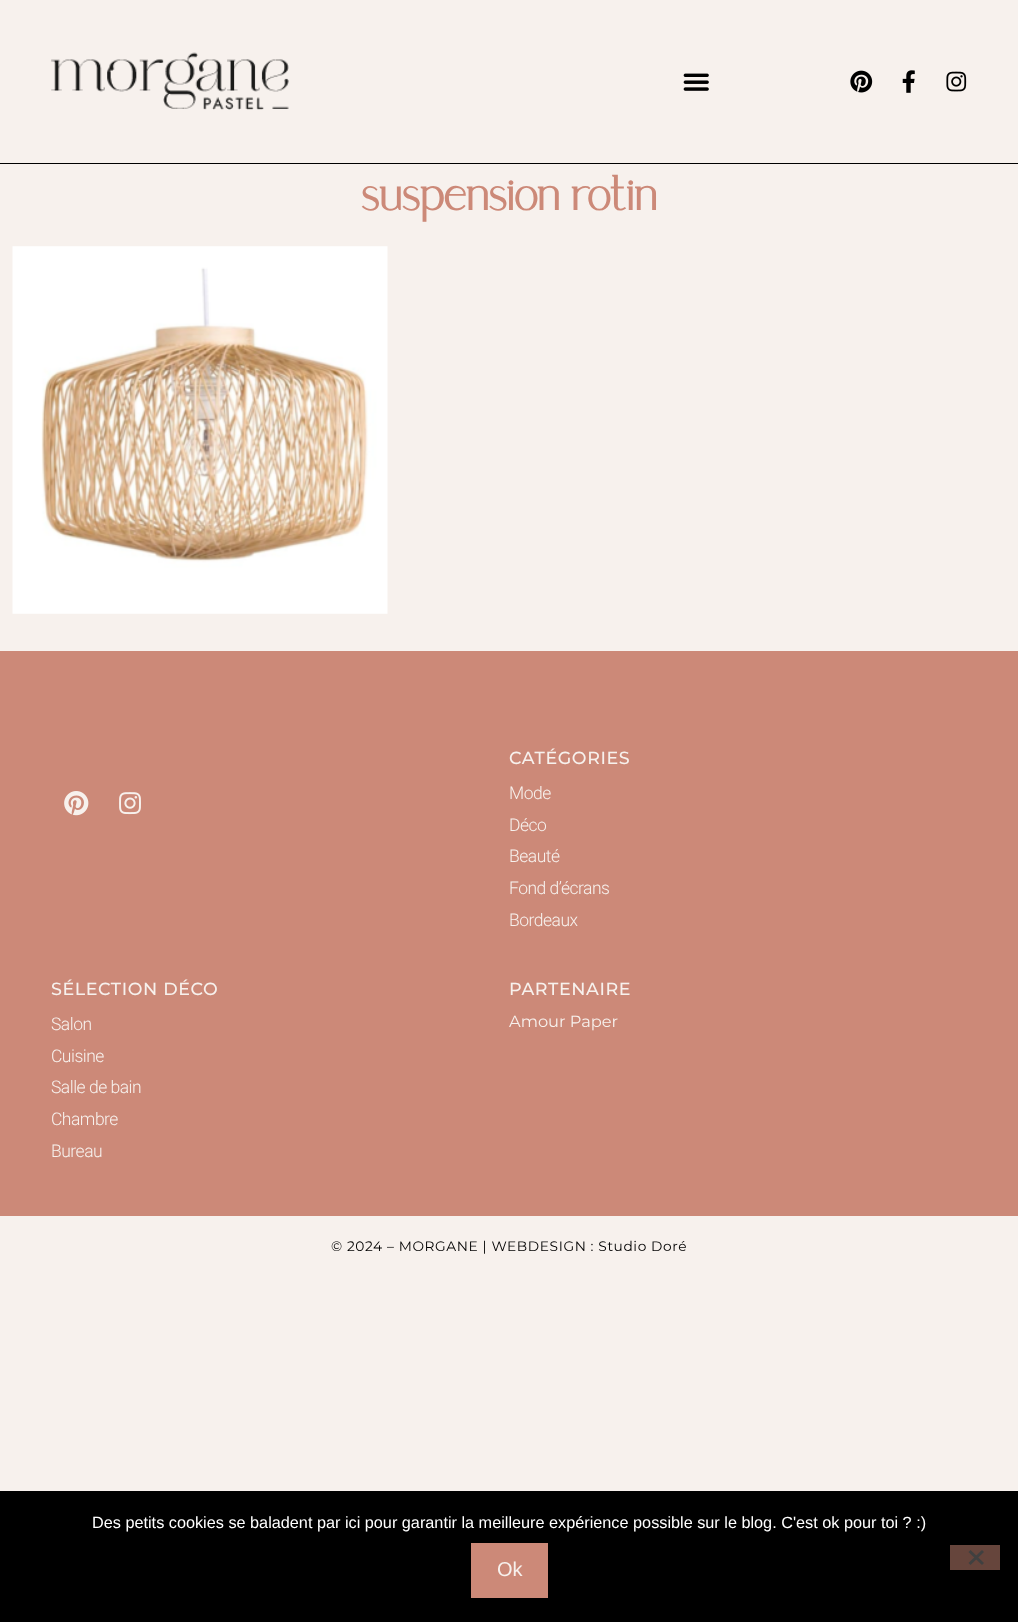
<svg xmlns="http://www.w3.org/2000/svg" width="1018" height="1622" viewBox="0 0 1018 1622">
  <style>
    .t1 { font: bold 45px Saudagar; fill: #cc8978; }
    .t2 { font: 500 17.5px Montserrat; letter-spacing: 0.6px; fill: #f7f1ed; }
    .t3 { font: 300 17.5px Roboto; letter-spacing: -0.5px; fill: #f7f1ed; }
    .t4 { font: 16.25px Montserrat; fill: #f7f1ed; }
    .t5 { font: 13.75px Montserrat; letter-spacing: 0.6px; fill: #000; }
    .t6 { font: 16.25px Liberation Sans; fill: #fff; }
    .t7 { font: 20px Liberation Sans; fill: #f7f1ed; }
  </style>
  <rect width="100%" height="100%" fill="#f7f1ed"/>
  <rect x="0" y="163" width="1018" height="1" fill="#000"/>
  <image x="51" y="52" width="238" height="58" href="images/1.png"/>
  <image x="683" y="73" width="26" height="18" href="images/2.png"/>
  <image x="850" y="70" width="23" height="23" href="images/3.png"/>
  <image x="902" y="70" width="13" height="23" href="images/4.png"/>
  <image x="946" y="71" width="21" height="21" href="images/5.png"/>
  <text x="362" y="210" class="t1">suspension rotin</text>
  <image x="12" y="246" width="376" height="368" href="images/6.png"/>
  <rect x="0" y="651" width="1018" height="565" fill="#cc8978"/>
  <image x="64" y="791" width="25" height="25" href="images/7.png"/>
  <image x="119" y="792" width="22" height="23" href="images/8.png"/>
  <text x="509" y="764" class="t2">CATÉGORIES</text>
  <text x="509" y="799" class="t3">Mode</text>
  <text x="509" y="831" class="t3">Déco</text>
  <text x="509" y="862" class="t3">Beauté</text>
  <text x="509" y="894" class="t3">Fond d’écrans</text>
  <text x="509" y="926" class="t3">Bordeaux</text>
  <text x="51" y="995" class="t2">SÉLECTION DÉCO</text>
  <text x="51" y="1030" class="t3">Salon</text>
  <text x="51" y="1062" class="t3">Cuisine</text>
  <text x="51" y="1093" class="t3">Salle de bain</text>
  <text x="51" y="1125" class="t3">Chambre</text>
  <text x="51" y="1157" class="t3">Bureau</text>
  <text x="509" y="995" class="t2">PARTENAIRE</text>
  <text x="509" y="1027" class="t4">Amour Paper</text>
  <text x="331" y="1251" class="t5">© 2024 – MORGANE | WEBDESIGN : Studio Doré</text>
  <rect x="0" y="1491" width="1018" height="131" fill="#000"/>
  <text x="92" y="1528" class="t6">Des petits cookies se baladent par ici pour garantir la meilleure expérience possible sur le blog. C'est ok pour toi ? :)</text>
  <rect x="471" y="1543" width="77" height="55" fill="#cc8978"/>
  <text x="497" y="1576" class="t7">Ok</text>
  <rect x="950" y="1545" width="50" height="25" fill="#66453c"/>
  <path d="M982 1550L984 1552L970.5 1565L968.5 1563Z" fill="#404040"/>
  <path d="M968.5 1552L970.5 1550L984 1563L982 1565Z" fill="#404040"/>
</svg>
